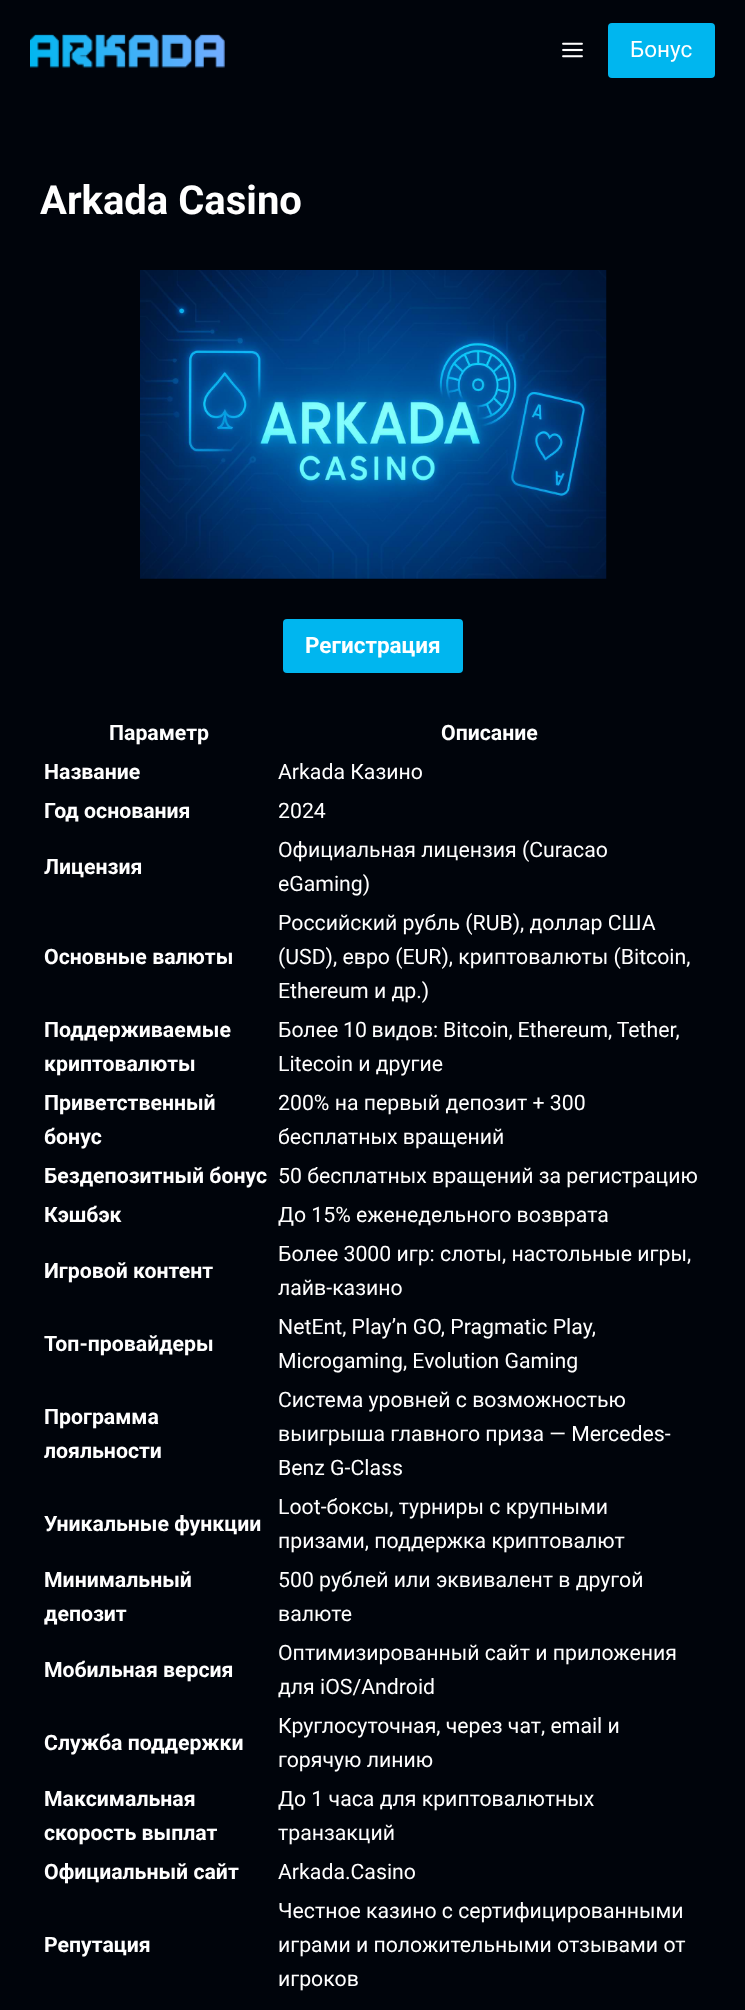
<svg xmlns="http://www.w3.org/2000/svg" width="745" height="2010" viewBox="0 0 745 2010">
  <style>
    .t1 { font: 22.5px Roboto; fill: #fff; }
    .t2 { font: bold 40px Roboto; fill: #fff; }
    .t3 { font: bold 22.5px Roboto; fill: #fff; }
    .t4 { font: bold 21.25px Roboto; fill: #fff; }
    .t5 { font: 21.25px Roboto; fill: #fff; }
  </style>
  <rect width="100%" height="100%" fill="#00040b"/>
  <image x="30" y="34" width="195" height="34" href="images/1.png"/>
  <image x="562" y="42" width="21" height="16" href="images/2.png"/>
  <rect x="608" y="23" width="107" height="55" rx="4" fill="#00b6ef"/>
  <text x="630" y="57" class="t1">Бонус</text>
  <text x="40" y="214" class="t2">Arkada Casino</text>
  <image x="140" y="270" width="467" height="309" href="images/3.png"/>
  <rect x="283" y="619" width="180" height="54" rx="4" fill="#00b6ef"/>
  <text x="305" y="653" class="t3">Регистрация</text>
  <text x="109" y="740" class="t4">Параметр</text>
  <text x="441" y="740" class="t4">Описание</text>
  <text x="44" y="779" class="t4">Название</text>
  <text x="278" y="779" class="t5">Arkada Казино</text>
  <text x="44" y="818" class="t4">Год основания</text>
  <text x="278" y="818" class="t5">2024</text>
  <text x="44" y="874" class="t4">Лицензия</text>
  <text x="278" y="857" class="t5">Официальная лицензия (Curacao</text>
  <text x="278" y="891" class="t5">eGaming)</text>
  <text x="44" y="964" class="t4">Основные валюты</text>
  <text x="278" y="930" class="t5">Российский рубль (RUB), доллар США</text>
  <text x="278" y="964" class="t5">(USD), евро (EUR), криптовалюты (Bitcoin,</text>
  <text x="278" y="998" class="t5">Ethereum и др.)</text>
  <text x="44" y="1037" class="t4">Поддерживаемые</text>
  <text x="44" y="1071" class="t4">криптовалюты</text>
  <text x="278" y="1037" word-spacing="-0.5" class="t5">Более 10 видов: Bitcoin, Ethereum, Tether,</text>
  <text x="278" y="1071" class="t5">Litecoin и другие</text>
  <text x="44" y="1110" class="t4">Приветственный</text>
  <text x="44" y="1144" class="t4">бонус</text>
  <text x="278" y="1110" class="t5">200% на первый депозит + 300</text>
  <text x="278" y="1144" class="t5">бесплатных вращений</text>
  <text x="44" y="1183" class="t4">Бездепозитный бонус</text>
  <text x="278" y="1183" class="t5">50 бесплатных вращений за регистрацию</text>
  <text x="44" y="1222" class="t4">Кэшбэк</text>
  <text x="278" y="1222" class="t5">До 15% еженедельного возврата</text>
  <text x="44" y="1278" class="t4">Игровой контент</text>
  <text x="278" y="1261" class="t5">Более 3000 игр: слоты, настольные игры,</text>
  <text x="278" y="1295" class="t5">лайв-казино</text>
  <text x="44" y="1351" class="t4">Топ-провайдеры</text>
  <text x="278" y="1334" class="t5">NetEnt, Play’n GO, Pragmatic Play,</text>
  <text x="278" y="1368" class="t5">Microgaming, Evolution Gaming</text>
  <text x="44" y="1424" class="t4">Программа</text>
  <text x="44" y="1458" class="t4">лояльности</text>
  <text x="278" y="1407" class="t5">Система уровней с возможностью</text>
  <text x="278" y="1441" class="t5">выигрыша главного приза — Mercedes-</text>
  <text x="278" y="1475" class="t5">Benz G-Class</text>
  <text x="44" y="1531" class="t4">Уникальные функции</text>
  <text x="278" y="1514" class="t5">Loot-боксы, турниры с крупными</text>
  <text x="278" y="1548" class="t5">призами, поддержка криптовалют</text>
  <text x="44" y="1587" class="t4">Минимальный</text>
  <text x="44" y="1621" class="t4">депозит</text>
  <text x="278" y="1587" class="t5">500 рублей или эквивалент в другой</text>
  <text x="278" y="1621" class="t5">валюте</text>
  <text x="44" y="1677" class="t4">Мобильная версия</text>
  <text x="278" y="1660" class="t5">Оптимизированный сайт и приложения</text>
  <text x="278" y="1694" class="t5">для iOS/Android</text>
  <text x="44" y="1750" class="t4">Служба поддержки</text>
  <text x="278" y="1733" class="t5">Круглосуточная, через чат, email и</text>
  <text x="278" y="1767" class="t5">горячую линию</text>
  <text x="44" y="1806" class="t4">Максимальная</text>
  <text x="44" y="1840" class="t4">скорость выплат</text>
  <text x="278" y="1806" class="t5">До 1 часа для криптовалютных</text>
  <text x="278" y="1840" class="t5">транзакций</text>
  <text x="44" y="1879" class="t4">Официальный сайт</text>
  <text x="278" y="1879" class="t5">Arkada.Casinо</text>
  <text x="44" y="1952" class="t4">Репутация</text>
  <text x="278" y="1918" class="t5">Честное казино с сертифицированными</text>
  <text x="278" y="1952" class="t5">играми и положительными отзывами от</text>
  <text x="278" y="1986" class="t5">игроков</text>
</svg>
